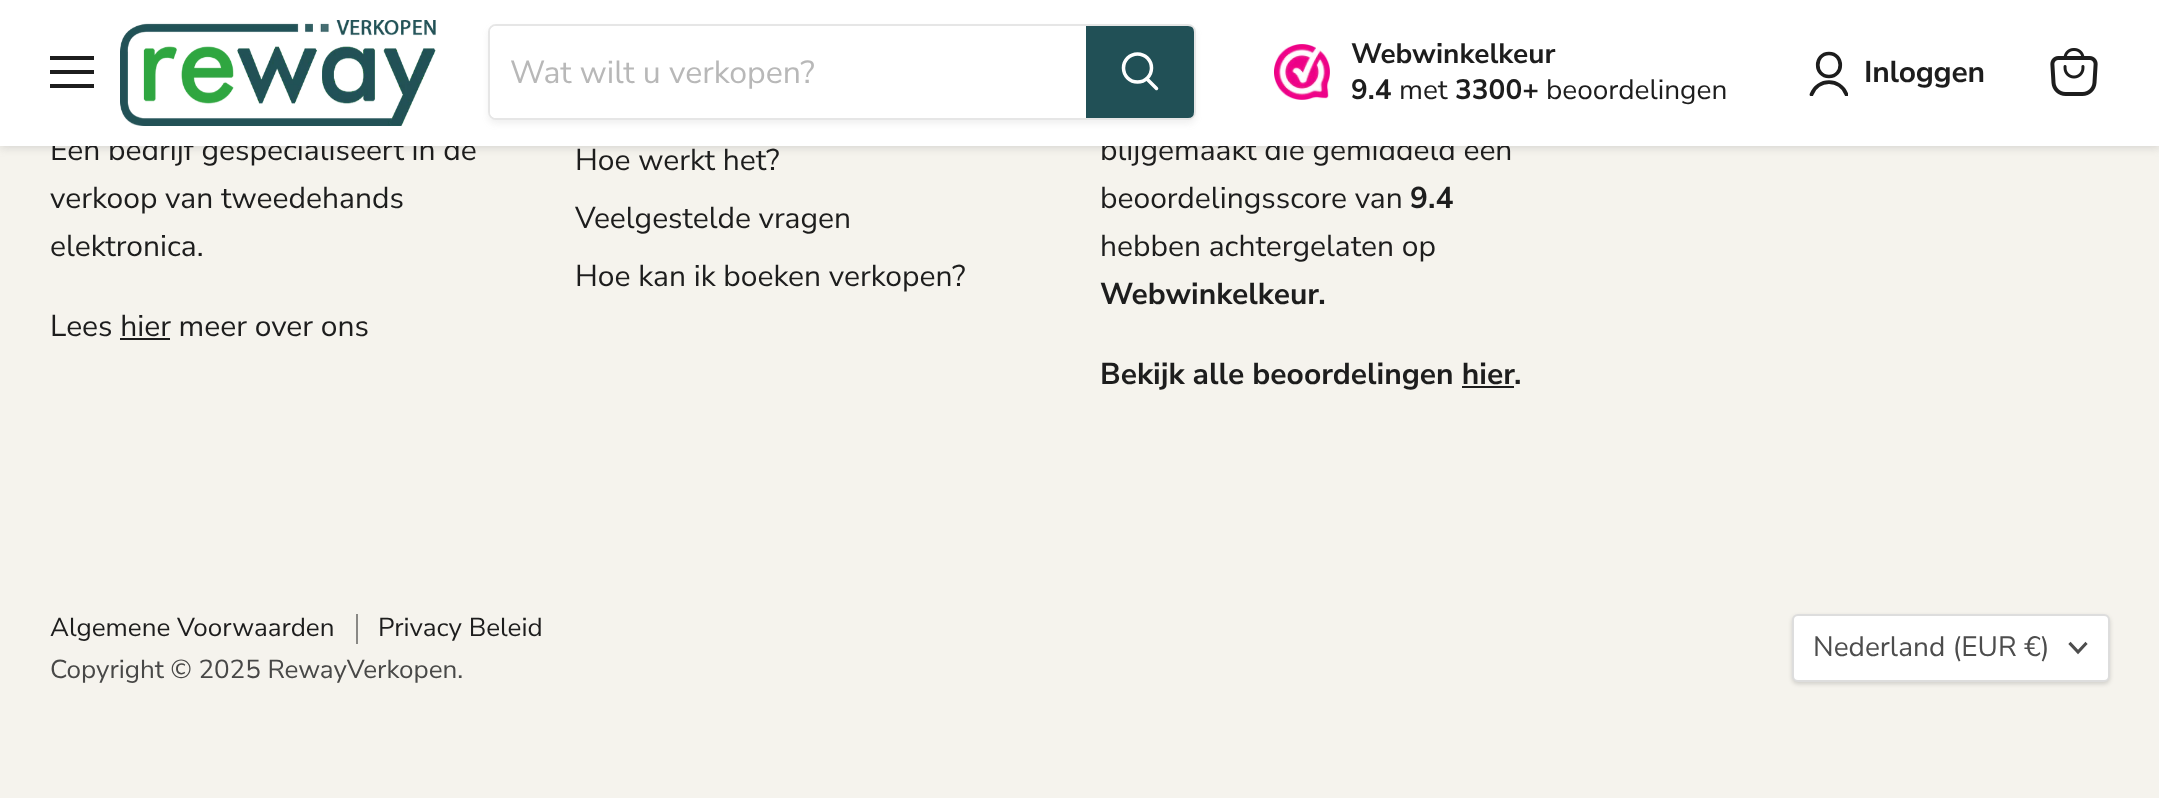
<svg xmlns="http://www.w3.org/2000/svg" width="2159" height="798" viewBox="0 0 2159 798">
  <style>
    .t1 { font: 30px Nunito Sans; fill: #1d1d1d; }
    .t2 { font: 32px Nunito Sans; fill: #b8b8b8; }
    .t3 { font: bold 28px Nunito Sans; fill: #1d1d1d; }
    .t4 { font: 28px Nunito Sans; fill: #1d1d1d; }
    .t5 { font: bold 30px Nunito Sans; letter-spacing: -0.25px; fill: #1d1d1d; }
    .t6 { font: bold 30px Nunito Sans; fill: #1d1d1d; }
    .t7 { font: 26px Nunito Sans; fill: #1d1d1d; }
    .t8 { font: 26px Nunito Sans; fill: #484847; }
    .t9 { font: 28px Nunito Sans; fill: #4d4d4d; }
  </style>
  <defs>
    <clipPath id="clip1"><path d="M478 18H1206V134H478ZM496 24H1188C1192.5 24 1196 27.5 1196 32V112C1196 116.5 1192.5 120 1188 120H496C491.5 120 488 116.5 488 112V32C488 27.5 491.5 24 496 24Z" clip-rule="evenodd"/></clipPath>
    <clipPath id="clip2"><rect x="1808" y="50" width="40" height="46"/></clipPath>
  </defs>
  <rect width="100%" height="100%" fill="#f5f3ed"/>
  <rect x="0" y="2" width="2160" height="146" fill="#80808040" filter="blur(4px)"/>
  <text x="50" y="160" class="t1">Een bedrijf gespecialiseert in de</text>
  <text x="1100" y="160" class="t1">blijgemaakt die gemiddeld een</text>
  <rect x="0" y="0" width="2159" height="146" fill="#fff"/>
  <rect x="50" y="56" width="44" height="4" fill="#1d1d1d"/>
  <rect x="50" y="70" width="44" height="4" fill="#1d1d1d"/>
  <rect x="50" y="84" width="44" height="4" fill="#1d1d1d"/>
  <image x="120" y="20" width="316" height="106" href="images/1.png"/>
  <g clip-path="url(#clip1)">
    <rect x="488" y="28" width="708" height="96" rx="8" fill="#8080801c" filter="blur(3px)"/>
  </g>
  <rect x="489" y="25" width="706" height="94" rx="7" fill="none" stroke="#80808033" stroke-width="2"/>
  <path d="M496 26H1086V118H496C492.5 118 490 115.5 490 112V32C490 28.5 492.5 26 496 26Z" fill="#fff"/>
  <text x="510" y="83" class="t2">Wat wilt u verkopen?</text>
  <path d="M1087 27H1188C1191 27 1193 29 1193 32V112C1193 115 1191 117 1188 117H1087Z" fill="#215056" stroke="#215056" stroke-width="2"/>
  <path d="M1156.5 88.5L1147 79" fill="none" stroke="#fff" stroke-width="3.5" stroke-linecap="round"/>
  <circle cx="1137.5" cy="68" r="14" fill="none" stroke="#fff" stroke-width="3.5"/>
  <image x="1274" y="44" width="56" height="56" href="images/2.png"/>
  <text x="1351" y="63" class="t3">Webwinkelkeur</text>
  <text x="1351" y="99" class="t3">9.4</text>
  <text x="1399" y="99" class="t4">met</text>
  <text x="1455" y="99" class="t3">3300+</text>
  <text x="1546" y="99" class="t4">beoordelingen</text>
  <path d="M1829 76.5C1844 76.5 1844 53.5 1829 53.5C1814 53.5 1814 76.5 1829 76.5Z" fill="none" stroke="#1d1d1d" stroke-width="3.7" stroke-linecap="round" stroke-linejoin="round"/>
  <g clip-path="url(#clip2)">
    <path d="M1846.5 94.5C1840.5 78 1817.5 78 1811.5 94.5" fill="none" stroke="#1d1d1d" stroke-width="3.7" stroke-linecap="round" stroke-linejoin="round"/>
  </g>
  <text x="1864" y="82" class="t5">Inloggen</text>
  <image x="2050" y="48" width="48" height="48" href="images/3.png"/>
  <text x="50" y="208" class="t1">verkoop van tweedehands</text>
  <text x="50" y="256" class="t1">elektronica.</text>
  <text x="50" y="336" class="t1">Lees hier meer over ons</text>
  <rect x="120" y="338" width="50" height="2" fill="#1d1d1d"/>
  <text x="575" y="170" class="t1">Hoe werkt het?</text>
  <text x="575" y="228" class="t1">Veelgestelde vragen</text>
  <text x="575" y="286" class="t1">Hoe kan ik boeken verkopen?</text>
  <text x="1100" y="208" class="t1">beoordelingsscore van</text>
  <text x="1410" y="208" class="t6">9.4</text>
  <text x="1100" y="256" class="t1">hebben achtergelaten op</text>
  <text x="1100" y="304" class="t6">Webwinkelkeur.</text>
  <text x="1100" y="384" class="t6">Bekijk alle beoordelingen hier</text>
  <text x="1514" y="384" class="t6">.</text>
  <rect x="1462" y="386" width="52" height="2" fill="#1d1d1d"/>
  <rect x="356" y="614" width="2" height="30" fill="#898885"/>
  <text x="50" y="636" class="t7">Algemene Voorwaarden</text>
  <text x="378" y="636" class="t7">Privacy Beleid</text>
  <text x="50" y="678" class="t8">Copyright © 2025 RewayVerkopen.</text>
  <rect x="1792" y="616" width="318" height="68" rx="6" fill="#00000026" filter="blur(2px)"/>
  <rect x="1793" y="615" width="316" height="66" rx="5" fill="#fff" stroke="#ddd" stroke-width="2"/>
  <text x="1813" y="656" class="t9">Nederland (EUR €)</text>
  <path d="M2078 652L2085.5 644M2078 652L2070.5 644" fill="none" stroke="#4d4d4d" stroke-width="3.1" stroke-linecap="square"/>
</svg>
